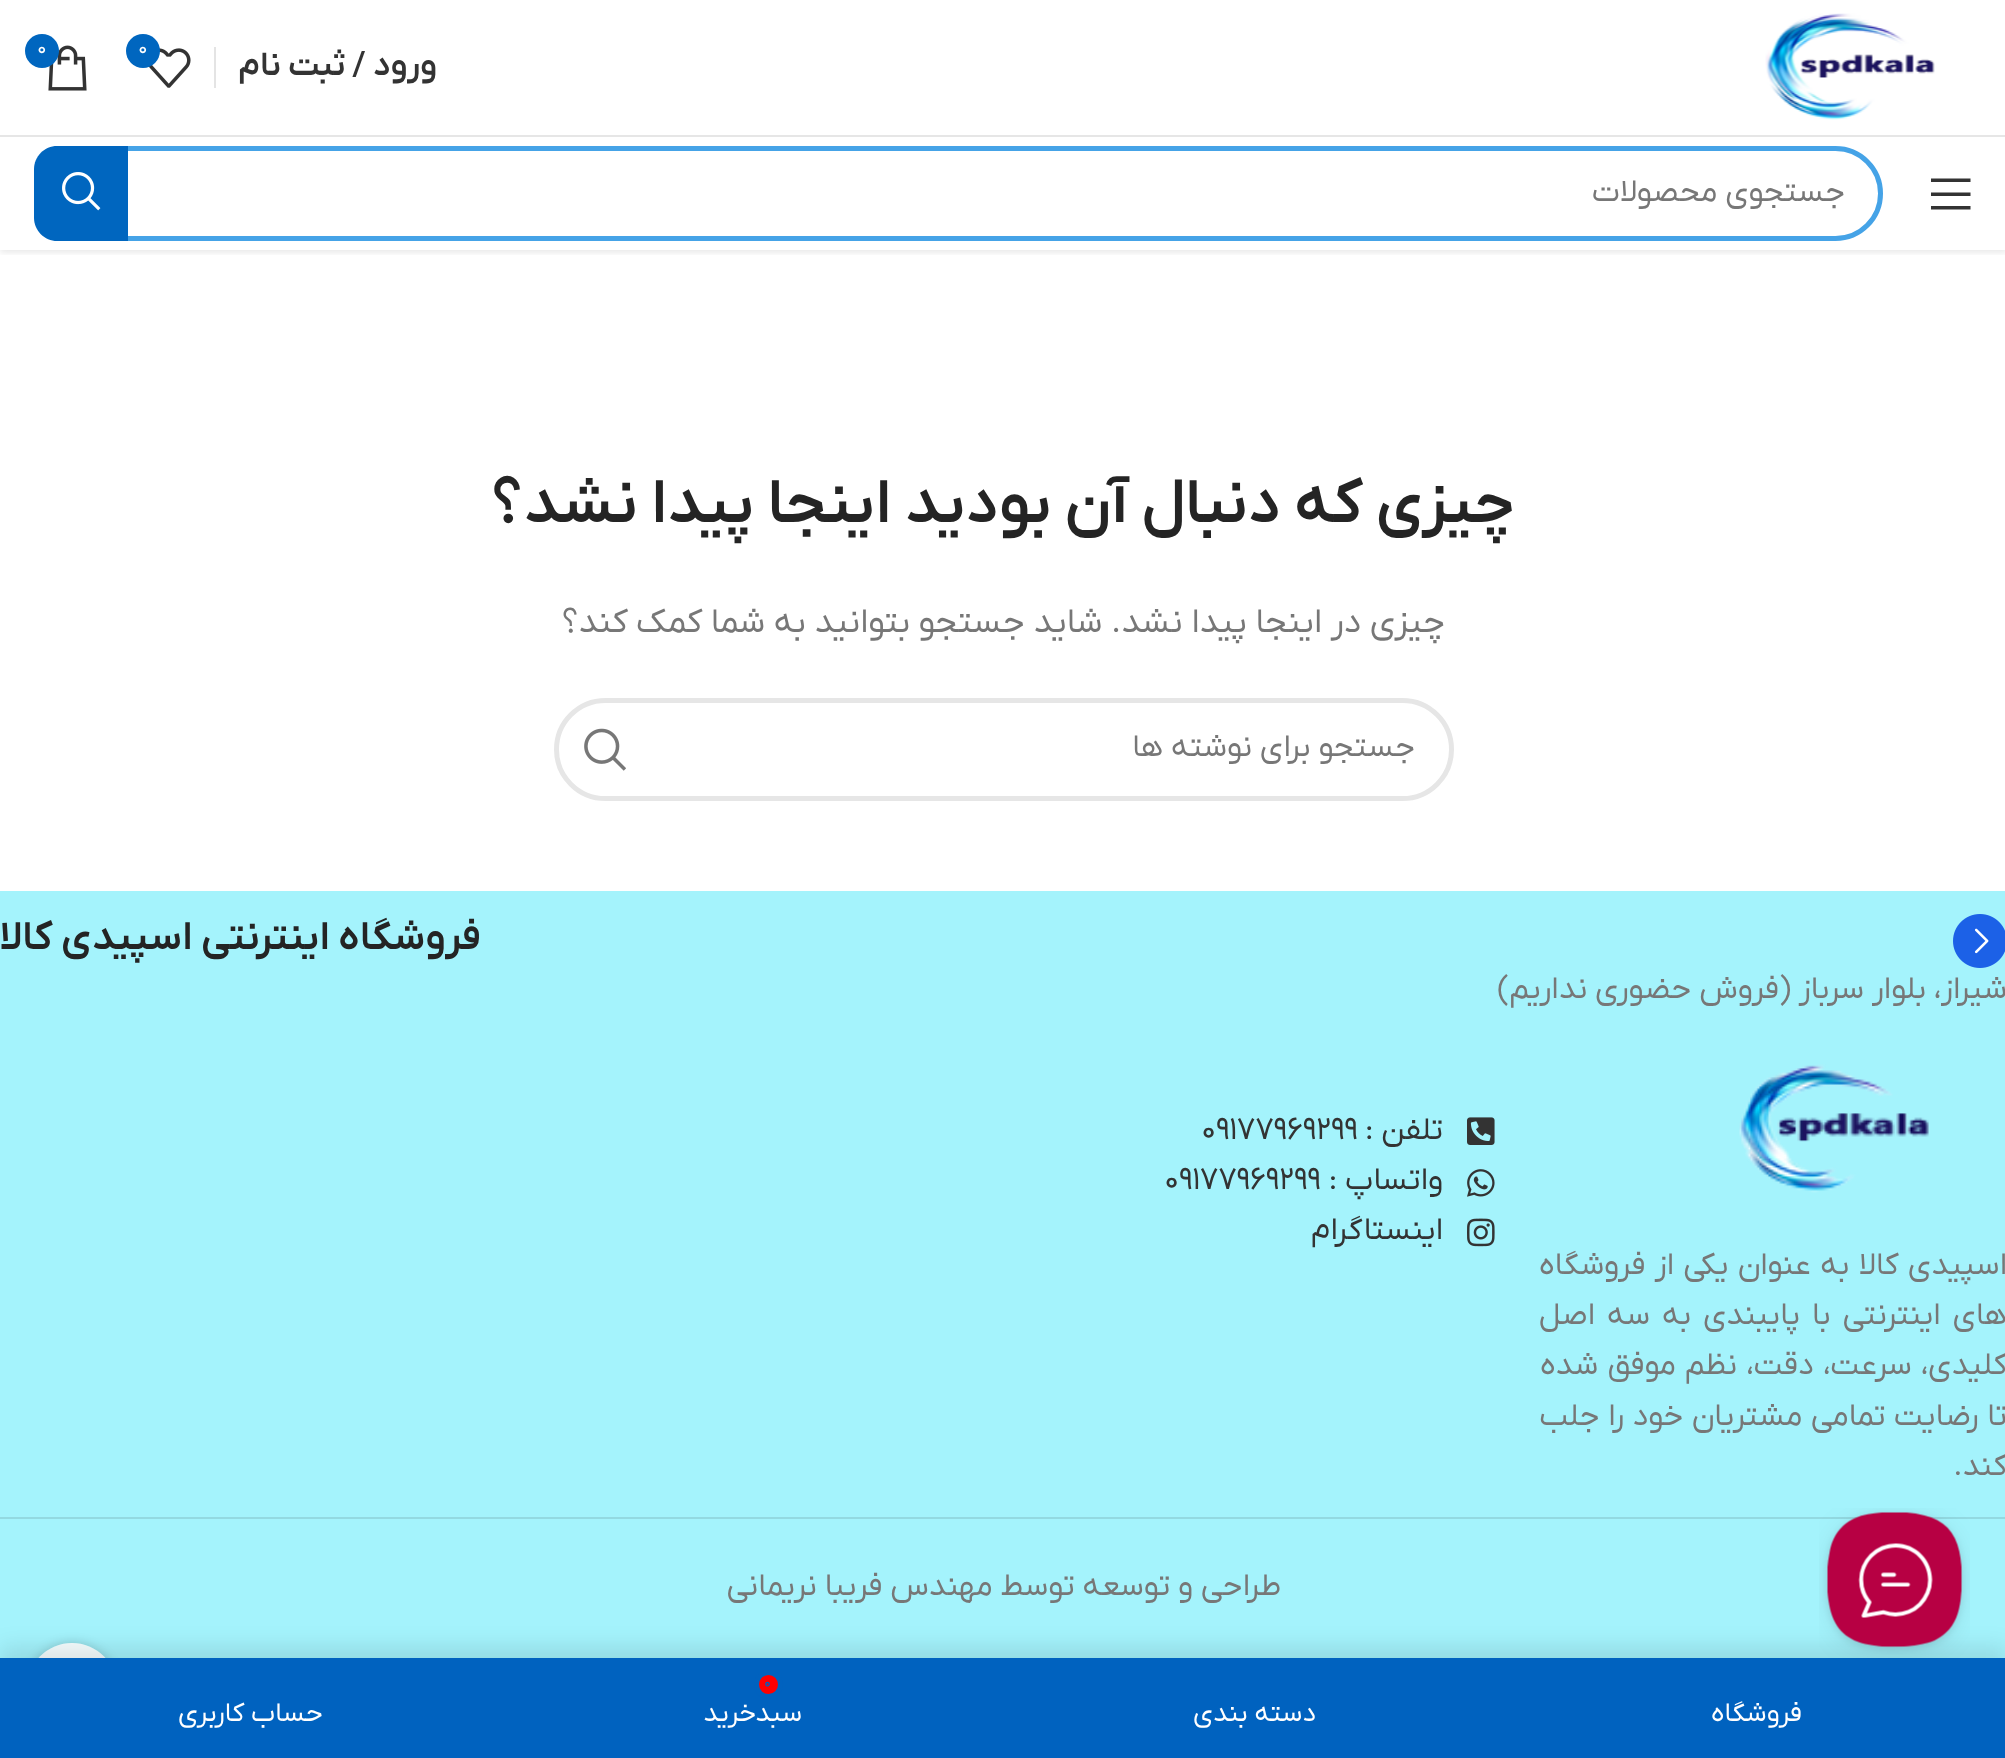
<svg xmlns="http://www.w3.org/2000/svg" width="2005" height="1758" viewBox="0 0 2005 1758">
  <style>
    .t1 { font: 600 33.75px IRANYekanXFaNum; direction: rtl; fill: #333; }
    .t2 { font: 20px IRANYekanXFaNum; fill: #fff; }
    .t3 { font: 31.5px IRANYekanXFaNum; direction: rtl; fill: #777; }
    .t4 { font: 600 63px IRANYekanXFaNum; direction: rtl; fill: #242424; }
    .t5 { font: 34.65px IRANYekanXFaNum; direction: rtl; fill: #777; }
    .t6 { font: 600 40.5px IRANYekanXFaNum; direction: rtl; fill: #242424; }
    .t7 { font: 31.5px IRANYekanXFaNum; direction: rtl; fill: #333; }
    .t8 { font: 31.5px IRANYekanXFaNum; fill: #333; }
    .t9 { font: 27px IRANYekanXFaNum; direction: rtl; fill: #fff; }
    .t10 { font: 600 14px IRANYekanXFaNum; fill: #0062bf; }
  </style>
  <defs>
    <clipPath id="clip1"><rect x="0" y="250" width="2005" height="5"/></clipPath>
    <clipPath id="clip2"><path d="M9 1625H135V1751H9ZM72 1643C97 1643 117 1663 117 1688C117 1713 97 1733 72 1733C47 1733 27 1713 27 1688C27 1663 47 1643 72 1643Z" clip-rule="evenodd"/></clipPath>
  </defs>
  <rect width="100%" height="100%" fill="#fff"/>
  <g clip-path="url(#clip1)">
    <rect x="0" y="2" width="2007" height="250" fill="#0000001a" filter="blur(3.5px)"/>
  </g>
  <rect x="0" y="135" width="2005" height="2" fill="#e6e6e6"/>
  <image x="1765" y="13" width="170" height="107" href="images/1.png"/>
  <text x="437" y="75" class="t1">ورود / ثبت نام</text>
  <rect x="214" y="47" width="2" height="41" fill="#e4e4e4"/>
  <image x="148" y="48" width="43" height="40" href="images/2.png"/>
  <circle cx="143" cy="51" r="17" fill="#0066bf"/>
  <text x="138" y="54" class="t2">0</text>
  <image x="48" y="45" width="39" height="46" href="images/3.png"/>
  <circle cx="42" cy="51" r="17" fill="#0066bf"/>
  <text x="37" y="54" class="t2">0</text>
  <rect x="0" y="249" width="2005" height="1" fill="#fff"/>
  <path d="M1931 182H1970.5V178.5H1931ZM1931 196H1970.5V192.5H1931ZM1931 209.5H1970.5V206H1931Z" fill="#333"/>
  <rect x="36.5" y="148.5" width="1844" height="90" rx="45" fill="none" stroke="#45a3e7" stroke-width="5"/>
  <text x="1845" y="201" class="t3">جستجوی محصولات</text>
  <path d="M57 146H128V241H57C44.5 241 34 230.5 34 218V169C34 156.5 44.5 146 57 146Z" fill="#0066bf"/>
  <image x="62" y="172" width="39" height="39" href="images/4.png"/>
  <text x="1515" y="522" class="t4">چیزی که دنبال آن بودید اینجا پیدا نشد؟</text>
  <text x="1445" y="632" class="t5">چیزی در اینجا پیدا نشد. شاید جستجو بتوانید به شما کمک کند؟</text>
  <rect x="556.5" y="700.5" width="895" height="98" rx="49" fill="none" stroke="#e6e6e6" stroke-width="5"/>
  <text x="1415" y="756" class="t3">جستجو برای نوشته ها</text>
  <image x="584" y="728" width="42" height="43" href="images/5.png"/>
  <rect x="0" y="891" width="2005" height="767" fill="#a4f3fc"/>
  <image x="1953" y="914" width="52" height="54" href="images/6.png"/>
  <text x="481" y="949" class="t6">فروشگاه اینترنتی اسپیدی کالا</text>
  <text x="2007" y="998" class="t3">شیراز، بلوار سرباز (فروش حضوری نداریم)</text>
  <image x="1467" y="1117" width="28" height="28" href="images/7.png"/>
  <text x="1443" y="1139" class="t7">تلفن :</text>
  <text x="1201" y="1139" class="t8">09177969299</text>
  <image x="1467" y="1169" width="28" height="28" href="images/8.png"/>
  <text x="1443" y="1189" class="t7">واتساپ :</text>
  <text x="1164" y="1189" class="t8">09177969299</text>
  <image x="1467" y="1218" width="28" height="29" href="images/9.png"/>
  <text x="1443" y="1239" class="t7">اینستاگرام</text>
  <image x="1739" y="1064" width="191" height="129" href="images/10.png"/>
  <text x="2007" y="1274" word-spacing="1.5" class="t3">اسپیدی کالا به عنوان یکی از فروشگاه</text>
  <text x="2007" y="1324" word-spacing="4" class="t3">های اینترنتی با پایبندی به سه اصل</text>
  <text x="2007" y="1374" word-spacing="1.5" class="t3">کلیدی، سرعت، دقت، نظم موفق شده</text>
  <text x="2007" y="1425" word-spacing="0.5" class="t3">تا رضایت تمامی مشتریان خود را جلب</text>
  <text x="2007" y="1475" class="t3">کند.</text>
  <rect x="0" y="1517" width="2005" height="2" fill="#93d9e1"/>
  <text x="1281" y="1595" class="t3">طراحی و توسعه توسط مهندس فریبا نریمانی</text>
  <g clip-path="url(#clip2)">
    <rect x="27" y="1643" width="90" height="90" rx="45" fill="#0000002b" filter="blur(5.5px)"/>
  </g>
  <circle cx="72" cy="1688" r="45" fill="#ffffffe6"/>
  <rect x="0" y="1647" width="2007" height="101" fill="#0000001a" filter="blur(11px)"/>
  <rect x="0" y="1658" width="2005" height="100" fill="#0062bf"/>
  <image x="1819" y="1508" width="151" height="151" href="images/11.png"/>
  <text x="1802" y="1721" class="t9">فروشگاه</text>
  <text x="1316" y="1721" class="t9">دسته بندی</text>
  <circle cx="768.5" cy="1684.5" r="12" fill="#f00" stroke="#0062bf" stroke-width="5"/>
  <text x="764" y="1687" class="t10">0</text>
  <text x="802" y="1721" class="t9">سبدخرید</text>
  <text x="323" y="1721" class="t9">حساب کاربری</text>
</svg>
